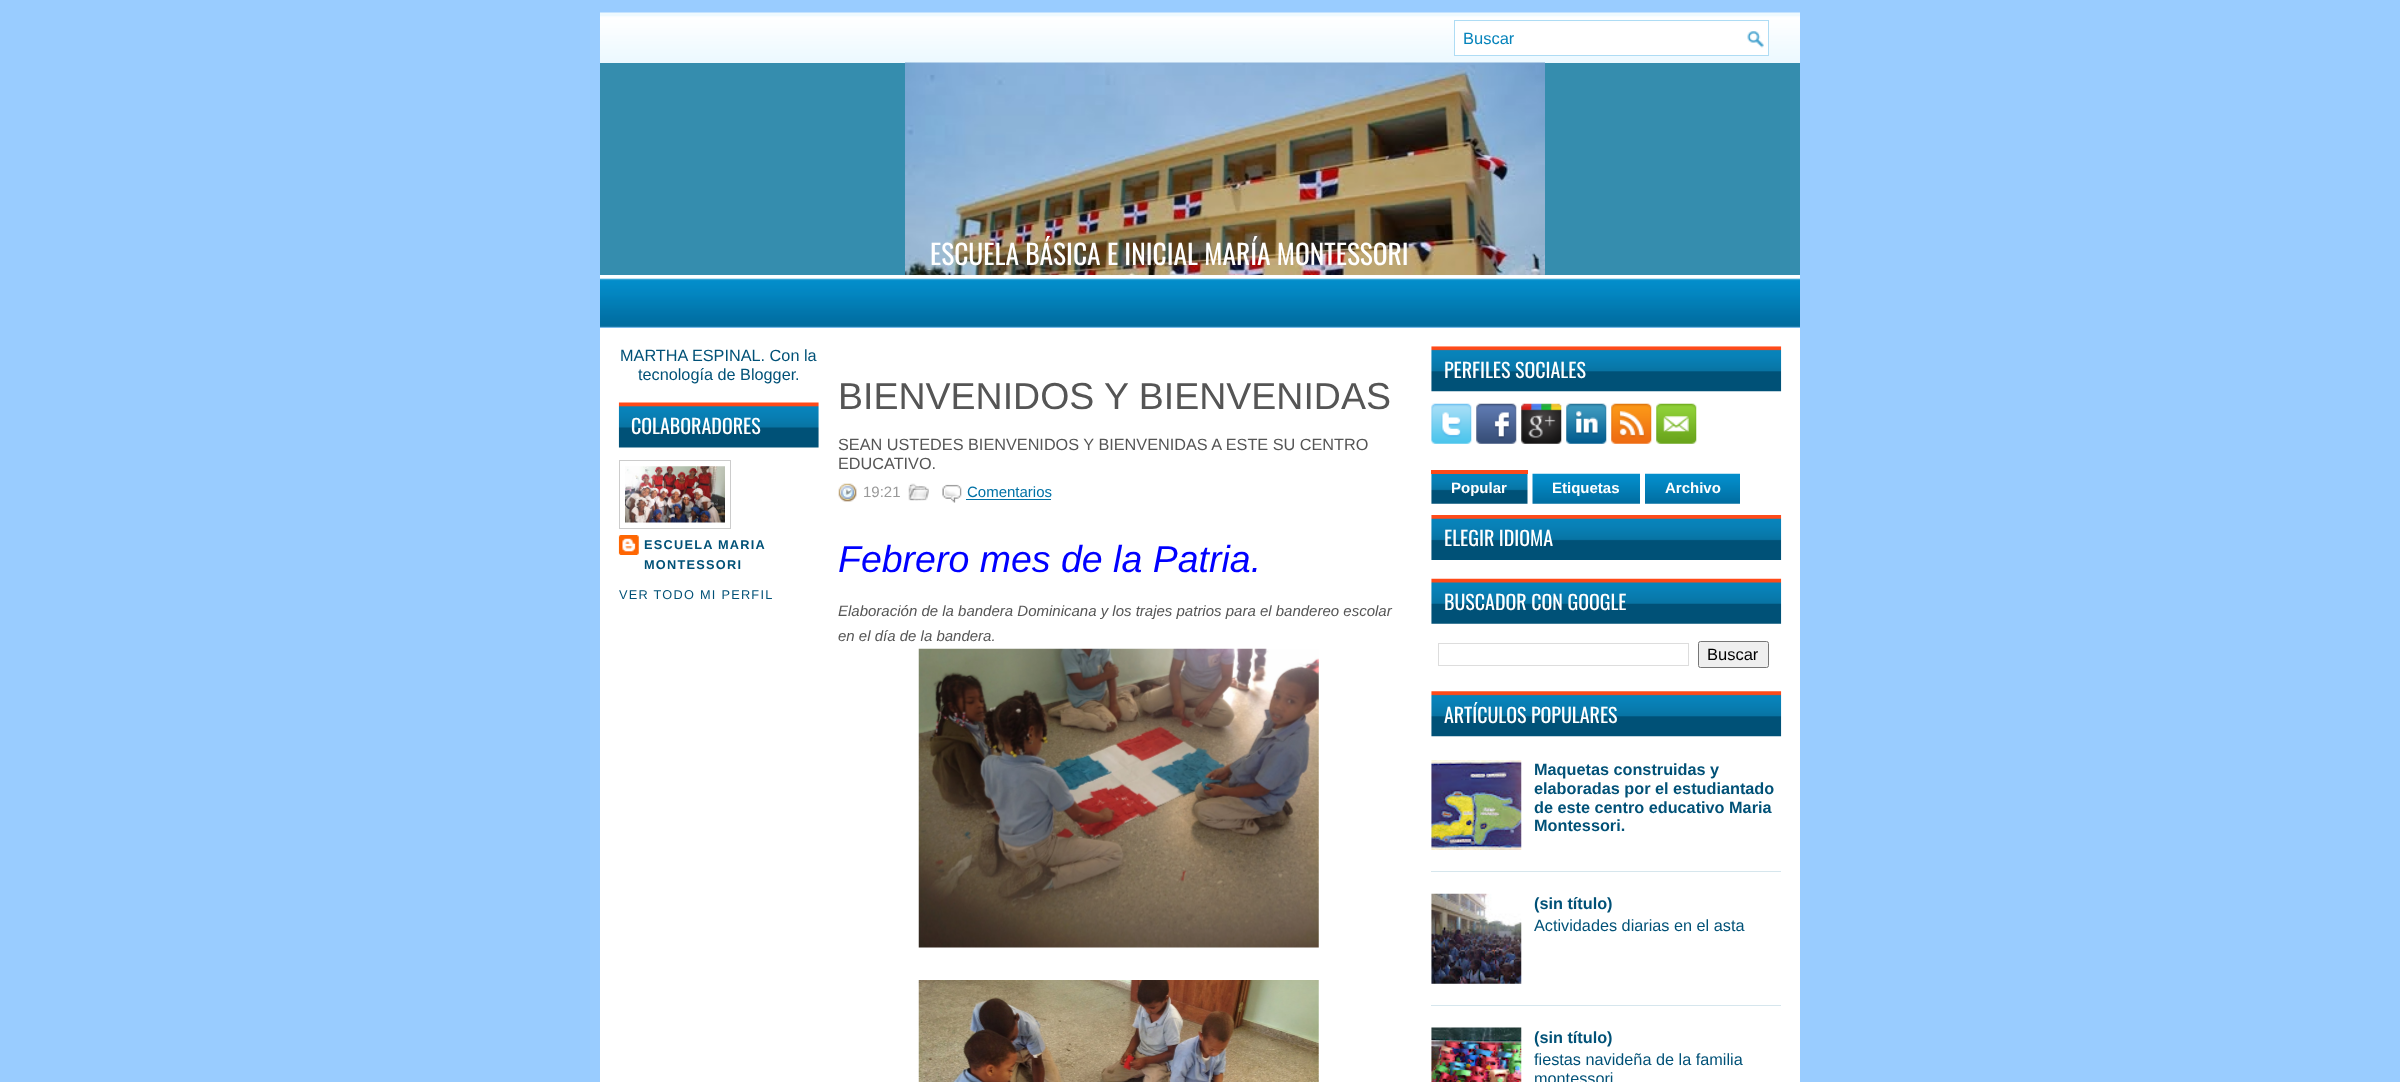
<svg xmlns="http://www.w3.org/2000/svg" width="2400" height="1082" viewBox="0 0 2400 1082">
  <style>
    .t1 { font: 16.5px Liberation Sans; fill: #0583bb; }
    .t2 { font: 27.5px Oswald; fill: #fff; }
    .t3 { font: 16.25px Liberation Sans; fill: #005177; }
    .t4 { font: 20px Oswald; fill: #fff; }
    .t5 { font: bold 12.75px Liberation Sans; letter-spacing: 1.25px; fill: #005177; }
    .t6 { font: 12.75px Liberation Sans; letter-spacing: 1.25px; fill: #005177; }
    .t7 { font: 37.5px Liberation Sans; fill: #555; }
    .t8 { font: 16.25px Liberation Sans; fill: #555; }
    .t9 { font: 15px Liberation Sans; fill: #999; }
    .t10 { font: 15px Liberation Sans; fill: #0171a5; }
    .t11 { font: italic 37.5px Liberation Sans; fill: #00f; }
    .t12 { font: italic 15px Liberation Sans; fill: #555; }
    .t13 { font: bold 15px Liberation Sans; fill: #fff; }
    .t14 { font: 16.5px Liberation Sans; fill: #000; }
    .t15 { font: bold 16.25px Liberation Sans; fill: #005177; }
  </style>
  <rect width="100%" height="100%" fill="#9cf"/>
  <image x="600" y="12" width="1200" height="51" href="images/1.png"/>
  <rect x="1455" y="23" width="313" height="32" fill="#fff"/>
  <image x="1747" y="31" width="17" height="17" href="images/2.png"/>
  <rect x="1454.5" y="20.5" width="314" height="35" fill="none" stroke="#aedcf4"/>
  <text x="1463" y="44" class="t1">Buscar</text>
  <rect x="600" y="63" width="1200" height="212" fill="#358dae"/>
  <image x="905" y="62" width="640" height="213" href="images/3.png"/>
  <text x="930" y="265" class="t2">ESCUELA BÁSICA E INICIAL MARÍA MONTESSORI</text>
  <image x="600" y="275" width="1200" height="53" href="images/4.png"/>
  <rect x="600" y="328" width="1200" height="754" fill="#fff"/>
  <text x="620" y="361" class="t3">MARTHA ESPINAL. Con la</text>
  <text x="638" y="380" class="t3">tecnología de Blogger</text>
  <text x="795" y="380" class="t3">.</text>
  <image x="618" y="402" width="201" height="46" href="images/5.png"/>
  <text x="631" y="434" class="t4">COLABORADORES</text>
  <rect x="619.5" y="460.5" width="111" height="68" fill="none" stroke="#ccc"/>
  <image x="625" y="466" width="100" height="57" href="images/6.png"/>
  <image x="618" y="535" width="21" height="20" href="images/7.png"/>
  <text x="644" y="549" class="t5">ESCUELA MARIA</text>
  <text x="644" y="569" class="t5">MONTESSORI</text>
  <text x="619" y="599" class="t6">VER TODO MI PERFIL</text>
  <text x="838" y="409" class="t7">BIENVENIDOS Y BIENVENIDAS</text>
  <text x="838" y="450" class="t8">SEAN USTEDES BIENVENIDOS Y BIENVENIDAS A ESTE SU CENTRO</text>
  <text x="838" y="469" class="t8">EDUCATIVO.</text>
  <image x="838" y="483" width="19" height="19" href="images/8.png"/>
  <text x="863" y="497" class="t9">19:21</text>
  <image x="908" y="483" width="21" height="18" href="images/9.png"/>
  <image x="942" y="484" width="20" height="19" href="images/10.png"/>
  <text x="967" y="497" class="t10">Comentarios</text>
  <rect x="966" y="499" width="85" height="1" fill="#0171a5"/>
  <text x="838" y="572" class="t11">Febrero mes de la Patria.</text>
  <text x="838" y="616" class="t12">Elaboración de la bandera Dominicana y los trajes patrios para el bandereo escolar</text>
  <text x="838" y="641" class="t12">en el día de la bandera.</text>
  <image x="918" y="648" width="401" height="300" href="images/11.png"/>
  <image x="918" y="980" width="401" height="102" href="images/12.png"/>
  <image x="1431" y="346" width="351" height="46" href="images/13.png"/>
  <text x="1444" y="378" class="t4">PERFILES SOCIALES</text>
  <image x="1431" y="403" width="41" height="41" href="images/14.png"/>
  <image x="1476" y="403" width="41" height="41" href="images/15.png"/>
  <image x="1521" y="403" width="41" height="41" href="images/16.png"/>
  <image x="1566" y="403" width="41" height="41" href="images/17.png"/>
  <image x="1611" y="403" width="41" height="41" href="images/18.png"/>
  <image x="1656" y="403" width="41" height="41" href="images/19.png"/>
  <image x="1431" y="474" width="97" height="30" href="images/20.png"/>
  <rect x="1431" y="470" width="97" height="4" fill="#ff4a19"/>
  <text x="1451" y="493" class="t13">Popular</text>
  <image x="1532" y="473" width="108" height="31" href="images/21.png"/>
  <text x="1552" y="493" class="t13">Etiquetas</text>
  <image x="1645" y="473" width="95" height="31" href="images/22.png"/>
  <text x="1665" y="493" class="t13">Archivo</text>
  <image x="1431" y="515" width="351" height="45" href="images/23.png"/>
  <text x="1444" y="546" class="t4">ELEGIR IDIOMA</text>
  <image x="1431" y="578" width="351" height="46" href="images/24.png"/>
  <text x="1444" y="610" class="t4">BUSCADOR CON GOOGLE</text>
  <rect x="1438.5" y="643.5" width="250" height="22" fill="none" stroke="#ddd"/>
  <rect x="1698.5" y="641.5" width="70" height="26" rx="2" fill="#efefef" stroke="#767676"/>
  <text x="1707" y="660" class="t14">Buscar</text>
  <image x="1431" y="691" width="351" height="46" href="images/25.png"/>
  <text x="1444" y="723" class="t4">ARTÍCULOS POPULARES</text>
  <rect x="1431" y="871" width="350" height="1" fill="#d6e6ed"/>
  <image x="1431" y="760" width="91" height="90" href="images/26.png"/>
  <text x="1534" y="775" class="t15">Maquetas construidas y</text>
  <text x="1534" y="794" class="t15">elaboradas por el estudiantado</text>
  <text x="1534" y="813" class="t15">de este centro educativo Maria</text>
  <text x="1534" y="831" class="t15">Montessori.</text>
  <rect x="1431" y="1005" width="350" height="1" fill="#d6e6ed"/>
  <image x="1431" y="893" width="91" height="91" href="images/27.png"/>
  <text x="1534" y="909" class="t15">(sin título)</text>
  <text x="1534" y="931" class="t3">Actividades diarias en el asta</text>
  <image x="1431" y="1027" width="91" height="55" href="images/28.png"/>
  <text x="1534" y="1043" class="t15">(sin título)</text>
  <text x="1534" y="1065" class="t3">fiestas navideña de la familia</text>
  <text x="1534" y="1084" class="t3">montessori</text>
</svg>
